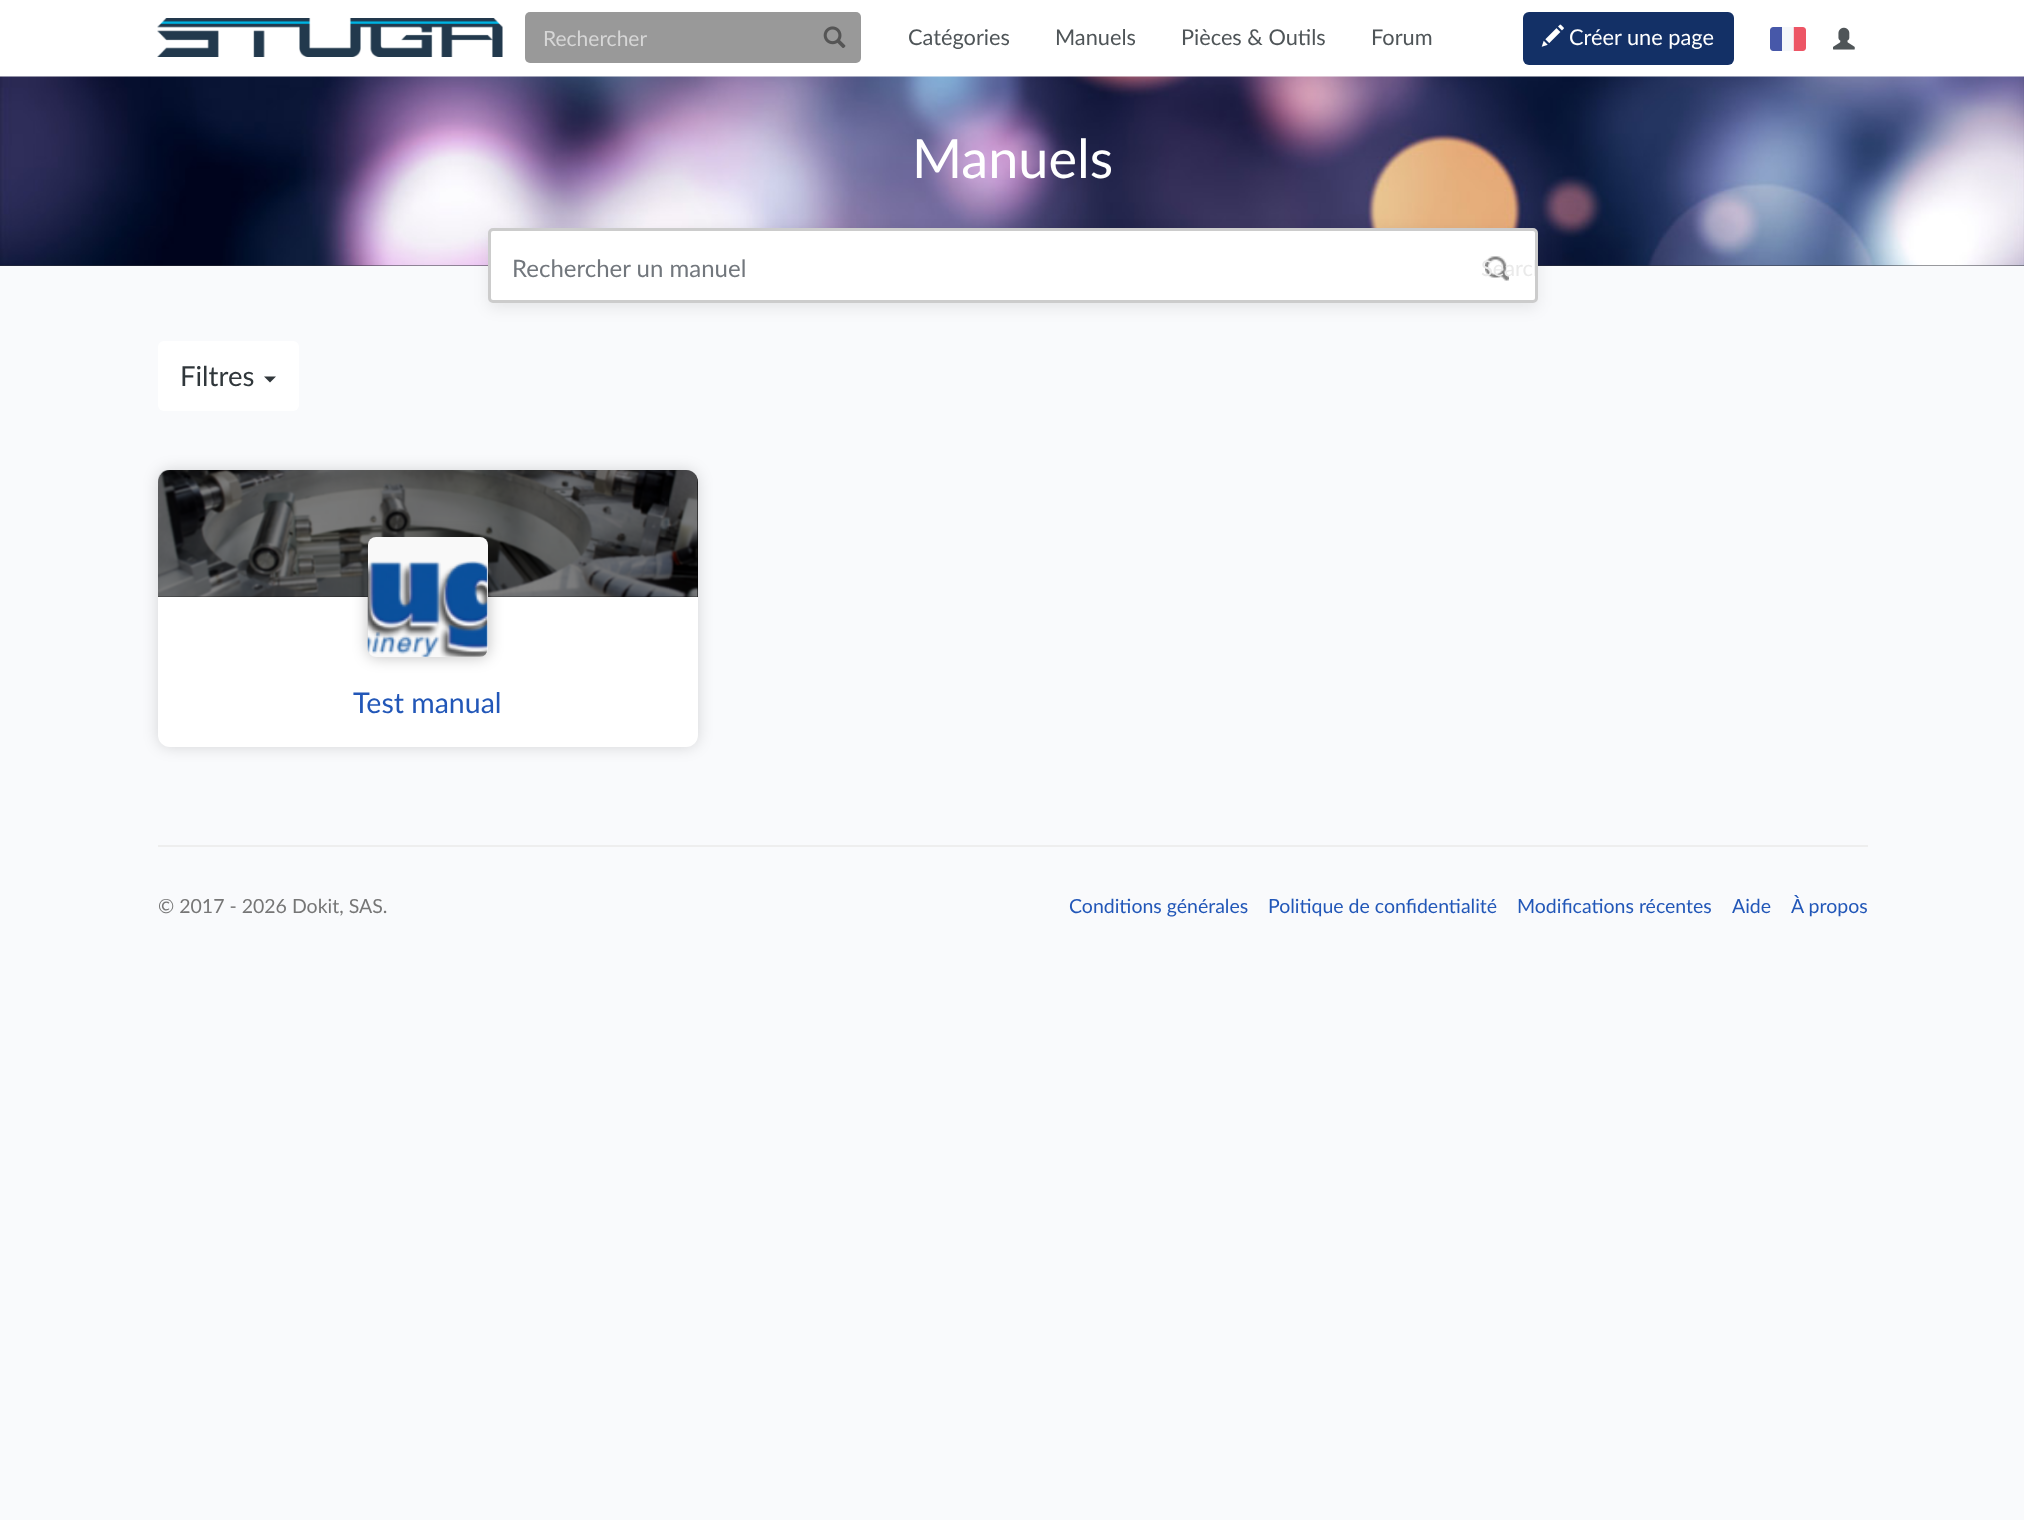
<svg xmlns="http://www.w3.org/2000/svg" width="2024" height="1520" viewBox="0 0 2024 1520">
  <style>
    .t1 { font: 21px Lato; fill: #d6d6d6; }
    .t2 { font: 21.75px Lato; fill: #4f5558; }
    .t3 { font: 21.75px Lato; fill: #fff; }
    .t4 { font: 54px Lato; fill: #fff; }
    .t5 { font: 24px Lato; fill: #72777d; }
    .t6 { font: 21.75px Lato; fill: #eaeaea; }
    .t7 { font: 27.5px Lato; fill: #30373b; }
    .t8 { font: 28.5px Lato; fill: #2257b8; }
    .t9 { font: 19.5px Lato; fill: #767676; }
    .t10 { font: 19.5px Lato; fill: #2257b8; }
  </style>
  <defs>
    <clipPath id="clip1"><rect x="1460" y="231" width="75" height="75" rx="3"/></clipPath>
  </defs>
  <rect width="100%" height="100%" fill="#f9fafc"/>
  <rect x="0" y="0" width="2024" height="77" fill="#fff"/>
  <image x="157" y="18" width="346" height="39" href="images/1.png"/>
  <rect x="525" y="12" width="336" height="51" rx="5" fill="#999"/>
  <text x="543" y="46" class="t1">Rechercher</text>
  <image x="823" y="26" width="23" height="22" href="images/2.png"/>
  <text x="908" y="45" class="t2">Catégories</text>
  <text x="1055" y="45" class="t2">Manuels</text>
  <text x="1181" y="45" class="t2">Pièces &amp; Outils</text>
  <text x="1371" y="45" class="t2">Forum</text>
  <rect x="1523" y="12" width="211" height="53" rx="6" fill="#133066"/>
  <image x="1541" y="24" width="23" height="23" href="images/3.png"/>
  <text x="1569" y="45" class="t3">Créer une page</text>
  <image x="1770" y="27" width="36" height="24" href="images/4.png"/>
  <image x="1833" y="27" width="22" height="23" href="images/5.png"/>
  <rect x="0" y="265" width="2024" height="1" fill="#31333b"/>
  <image x="0" y="76" width="2024" height="190" href="images/6.png"/>
  <text x="912" y="178" class="t4">Manuels</text>
  <rect x="488" y="233" width="1050" height="75" rx="5" fill="#00000014" filter="blur(7.5px)"/>
  <rect x="489.5" y="229.5" width="1047" height="72" rx="3.5" fill="#fff" stroke="#ccc" stroke-width="3"/>
  <text x="512" y="277" class="t5">Rechercher un manuel</text>
  <image x="1485" y="256" width="24" height="25" href="images/7.png"/>
  <g clip-path="url(#clip1)">
    <text x="1481" y="276" class="t6">Search</text>
  </g>
  <rect x="158" y="341" width="141" height="70" rx="6" fill="#fff"/>
  <text x="180" y="386" class="t7">Filtres</text>
  <path d="M264 376.5H276L270 382.5Z" fill="#30373b"/>
  <rect x="158" y="470" width="540" height="277" rx="12" fill="#00000026" filter="blur(7.5px)"/>
  <rect x="158" y="470" width="540" height="277" rx="12" fill="#fff"/>
  <path d="M170 470H686C692.5 470 698 475.5 698 482V597H158V482C158 475.5 163.5 470 170 470Z" fill="#000"/>
  <image x="158" y="470" width="540" height="127" href="images/8.png"/>
  <rect x="368" y="537" width="120" height="120" rx="8" fill="#00000040" filter="blur(7.5px)"/>
  <rect x="368" y="537" width="120" height="120" rx="8" fill="#f9f9f9"/>
  <image x="367" y="561" width="121" height="96" href="images/9.png"/>
  <text x="353" y="713" class="t8">Test manual</text>
  <rect x="158" y="845" width="1710" height="2" fill="#eee"/>
  <text x="158" y="913" class="t9">© 2017 - 2026 Dokit, SAS.</text>
  <text x="1069" y="913" class="t10">Conditions générales</text>
  <text x="1268" y="913" class="t10">Politique de confidentialité</text>
  <text x="1517" y="913" class="t10">Modifications récentes</text>
  <text x="1732" y="913" class="t10">Aide</text>
  <text x="1791" y="913" class="t10">À propos</text>
</svg>
